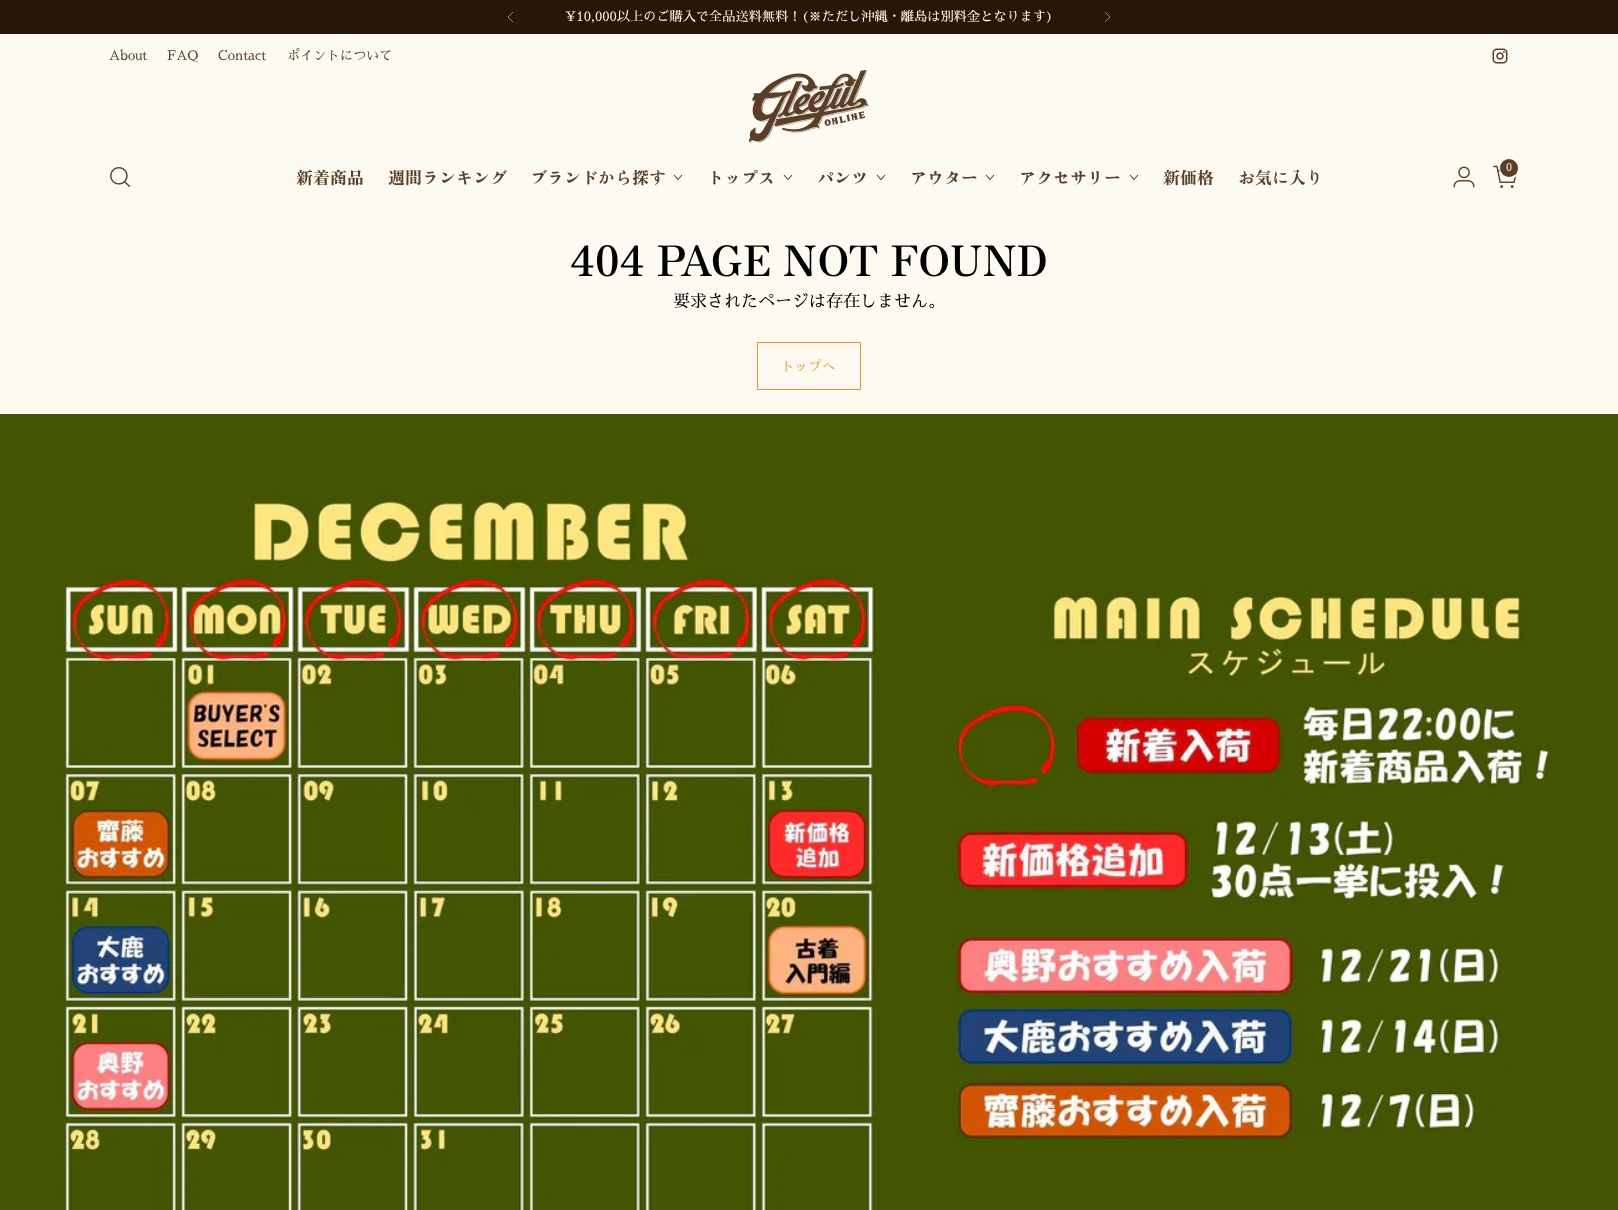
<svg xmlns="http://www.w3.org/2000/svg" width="1618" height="1210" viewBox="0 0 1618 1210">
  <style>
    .t1 { font: 13.2px Sawarabi Mincho; fill: #fdfaf2; }
    .t2 { font: 13.2px Sawarabi Mincho; fill: #5b3e26; }
    .t3 { font: 17px Zen Antique Soft; fill: #5b3e26; }
    .t4 { font: 11px Sawarabi Mincho; fill: #fdfaf2; }
    .t5 { font: 42px Zen Antique Soft; fill: #000; }
    .t6 { font: 17px Sawarabi Mincho; fill: #000; }
    .t7 { font: 13.2px Sawarabi Mincho; letter-spacing: 0.5px; fill: #ff9126; }
  </style>
  <rect width="100%" height="100%" fill="#fdfaf2"/>
  <rect x="0" y="0" width="1618" height="34" fill="#281607"/>
  <text x="565" y="21" class="t1">¥10,000以上のご購入で全品送料無料！(※ただし沖縄・離島は別料金となります)</text>
  <path d="M513 12L508 17L513 22" fill="none" stroke="#93887d"/>
  <path d="M1105 22L1110 17L1105 12" fill="none" stroke="#93887d"/>
  <text x="109" y="60" class="t2">About</text>
  <text x="167" y="60" class="t2">FAQ</text>
  <text x="218" y="60" class="t2">Contact</text>
  <text x="287" y="60" class="t2">ポイントについて</text>
  <image x="1492" y="48" width="16" height="16" href="images/1.png"/>
  <image x="749" y="70" width="120" height="73" href="images/2.png"/>
  <image x="110" y="167" width="21" height="21" href="images/3.png"/>
  <text x="296" y="184" class="t3">新着商品</text>
  <text x="388" y="184" class="t3">週間ランキング</text>
  <text x="530" y="184" class="t3">ブランドから探す</text>
  <path d="M674 175L678 179.5L682 175" fill="none" stroke="#5b3e26" stroke-width="1.1"/>
  <text x="707" y="184" class="t3">トップス</text>
  <path d="M784 175L788 179.5L792 175" fill="none" stroke="#5b3e26" stroke-width="1.1"/>
  <text x="817" y="184" class="t3">パンツ</text>
  <path d="M877 175L881 179.5L885 175" fill="none" stroke="#5b3e26" stroke-width="1.1"/>
  <text x="910" y="184" class="t3">アウター</text>
  <path d="M986 175L990 179.5L994 175" fill="none" stroke="#5b3e26" stroke-width="1.1"/>
  <text x="1019" y="184" class="t3">アクセサリー</text>
  <path d="M1130 175L1134 179.5L1138 175" fill="none" stroke="#5b3e26" stroke-width="1.1"/>
  <text x="1163" y="184" class="t3">新価格</text>
  <text x="1238" y="184" class="t3">お気に入り</text>
  <image x="1453" y="166" width="22" height="22" href="images/4.png"/>
  <image x="1493" y="165" width="25" height="23" href="images/5.png"/>
  <circle cx="1509.5" cy="168.5" r="9.5" fill="none" stroke="#fdfaf2" stroke-width="2"/>
  <circle cx="1509" cy="168" r="9" fill="#5b3e26"/>
  <text x="1506" y="171" class="t4">0</text>
  <text x="570" y="276" class="t5">404 PAGE NOT FOUND</text>
  <text x="673" y="307" class="t6">要求されたページは存在しません。</text>
  <rect x="757.5" y="342.5" width="103" height="47" fill="none" stroke="#ff9126"/>
  <text x="781" y="371" class="t7">トップへ</text>
  <image x="0" y="414" width="1618" height="796" href="images/6.png"/>
</svg>
